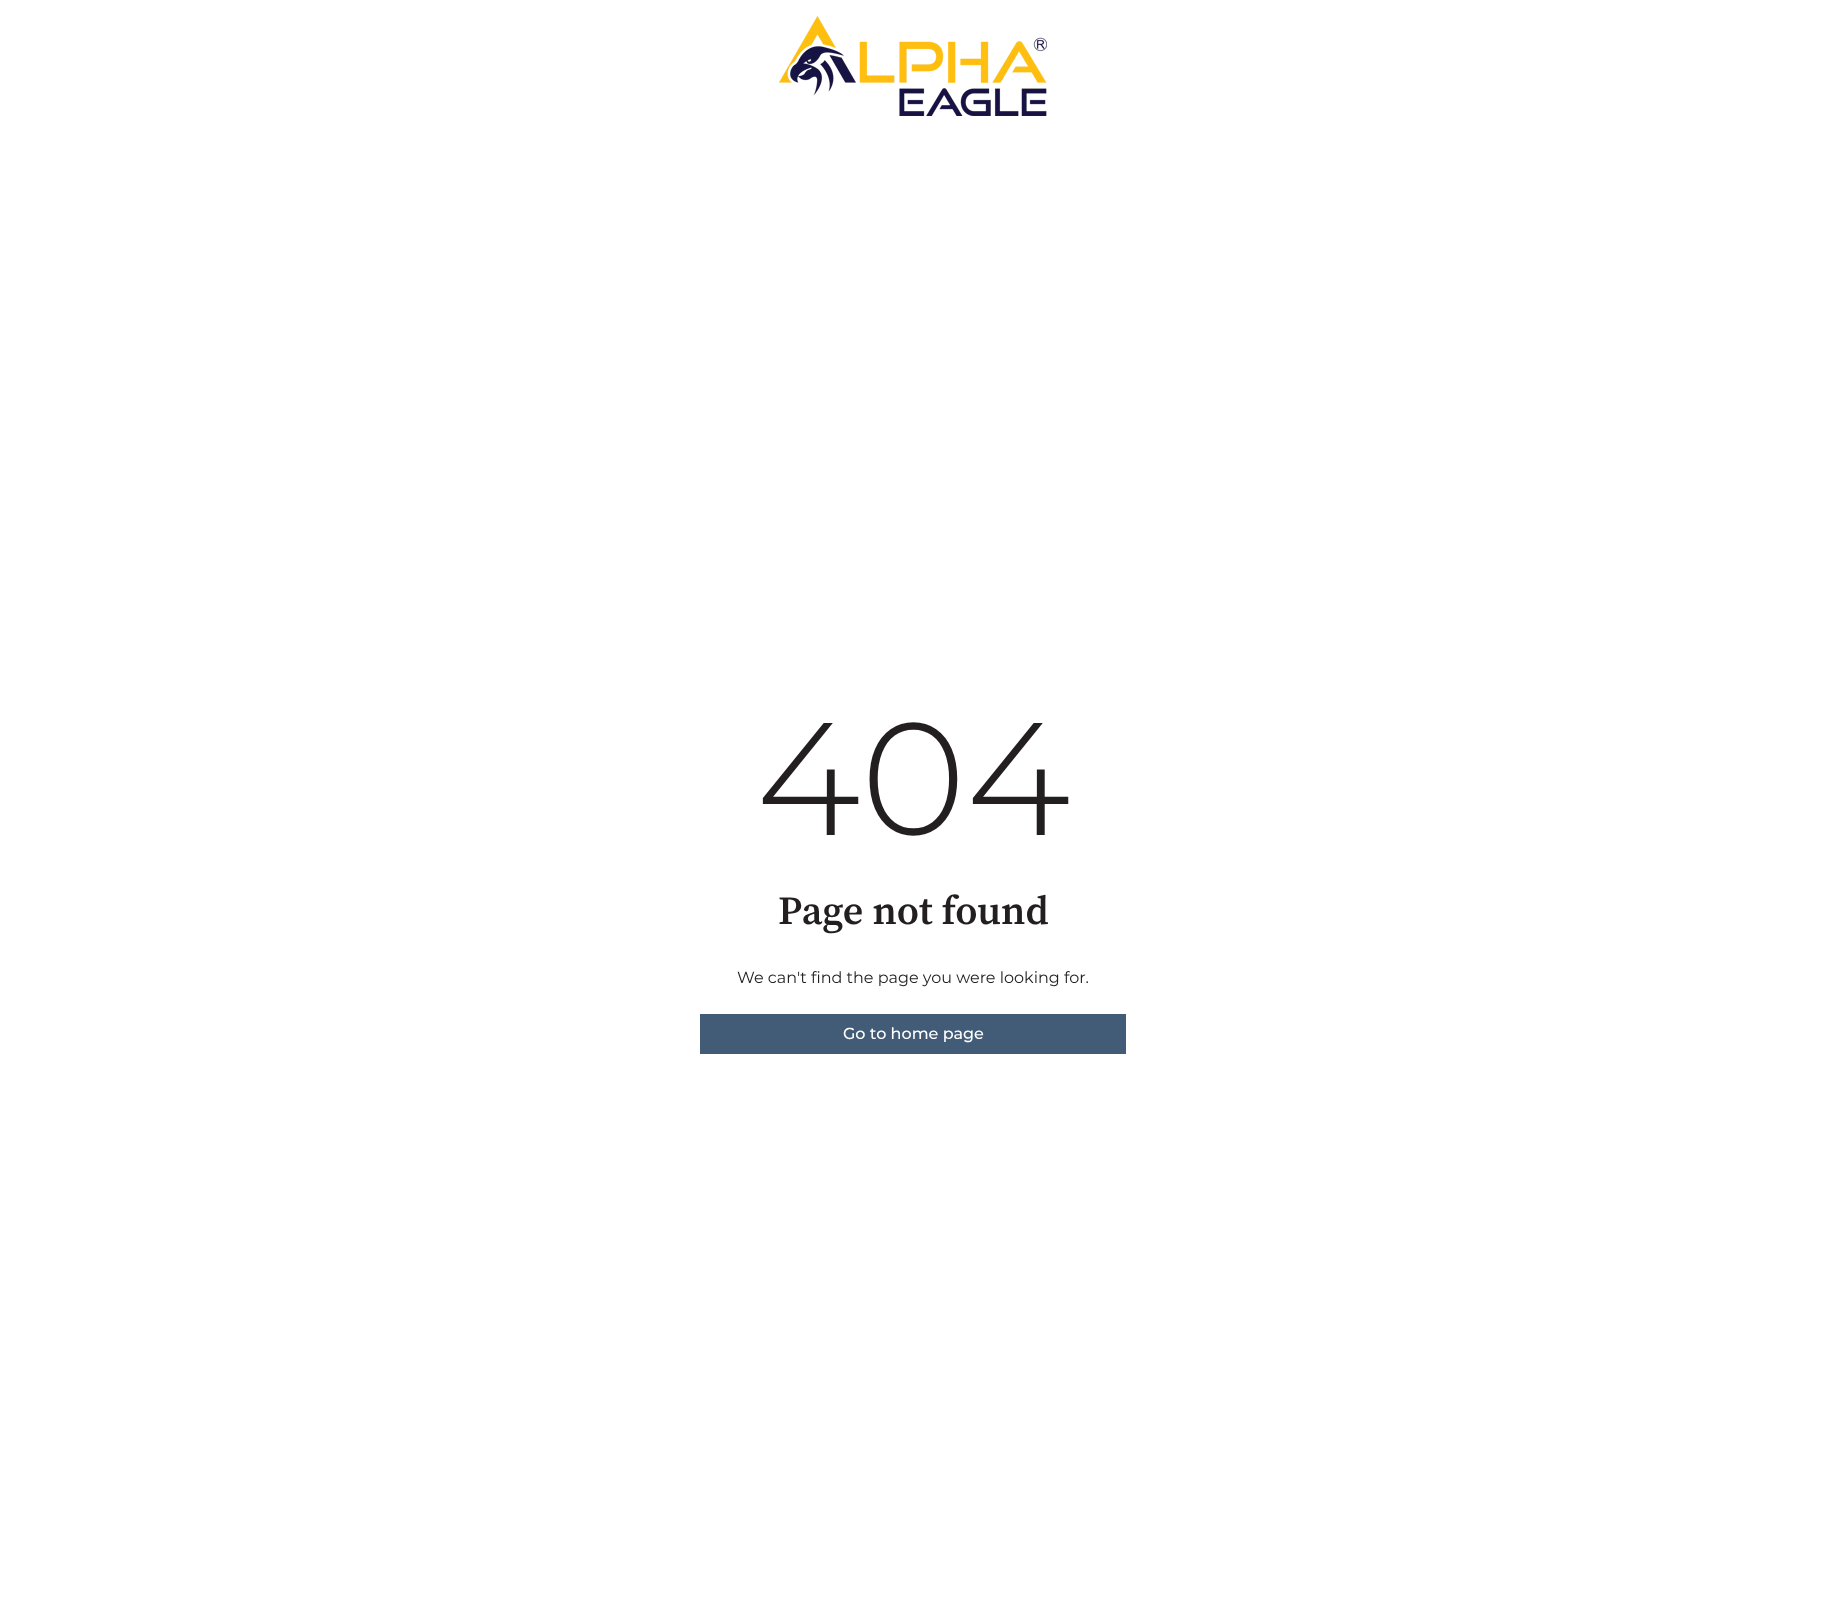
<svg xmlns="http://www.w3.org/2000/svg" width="1826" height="1619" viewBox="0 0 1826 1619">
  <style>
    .t1 { font: 300 160px Montserrat; fill: #231f20; }
    .t2 { font: 600 40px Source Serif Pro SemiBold; fill: #231f20; }
    .t3 { font: 16px Montserrat; fill: #231f20; }
    .t4 { font: 500 16px Montserrat; fill: #fff; }
  </style>
  <rect width="100%" height="100%" fill="#fff"/>
  <image x="779" y="16" width="268" height="100" href="images/1.png"/>
  <text x="756" y="835" class="t1">404</text>
  <text x="778" y="924" class="t2">Page not found</text>
  <text x="737" y="983" class="t3">We can't find the page you were looking for.</text>
  <rect x="700" y="1014" width="426" height="40" fill="#425b76"/>
  <text x="843" y="1039" class="t4">Go to home page</text>
</svg>
